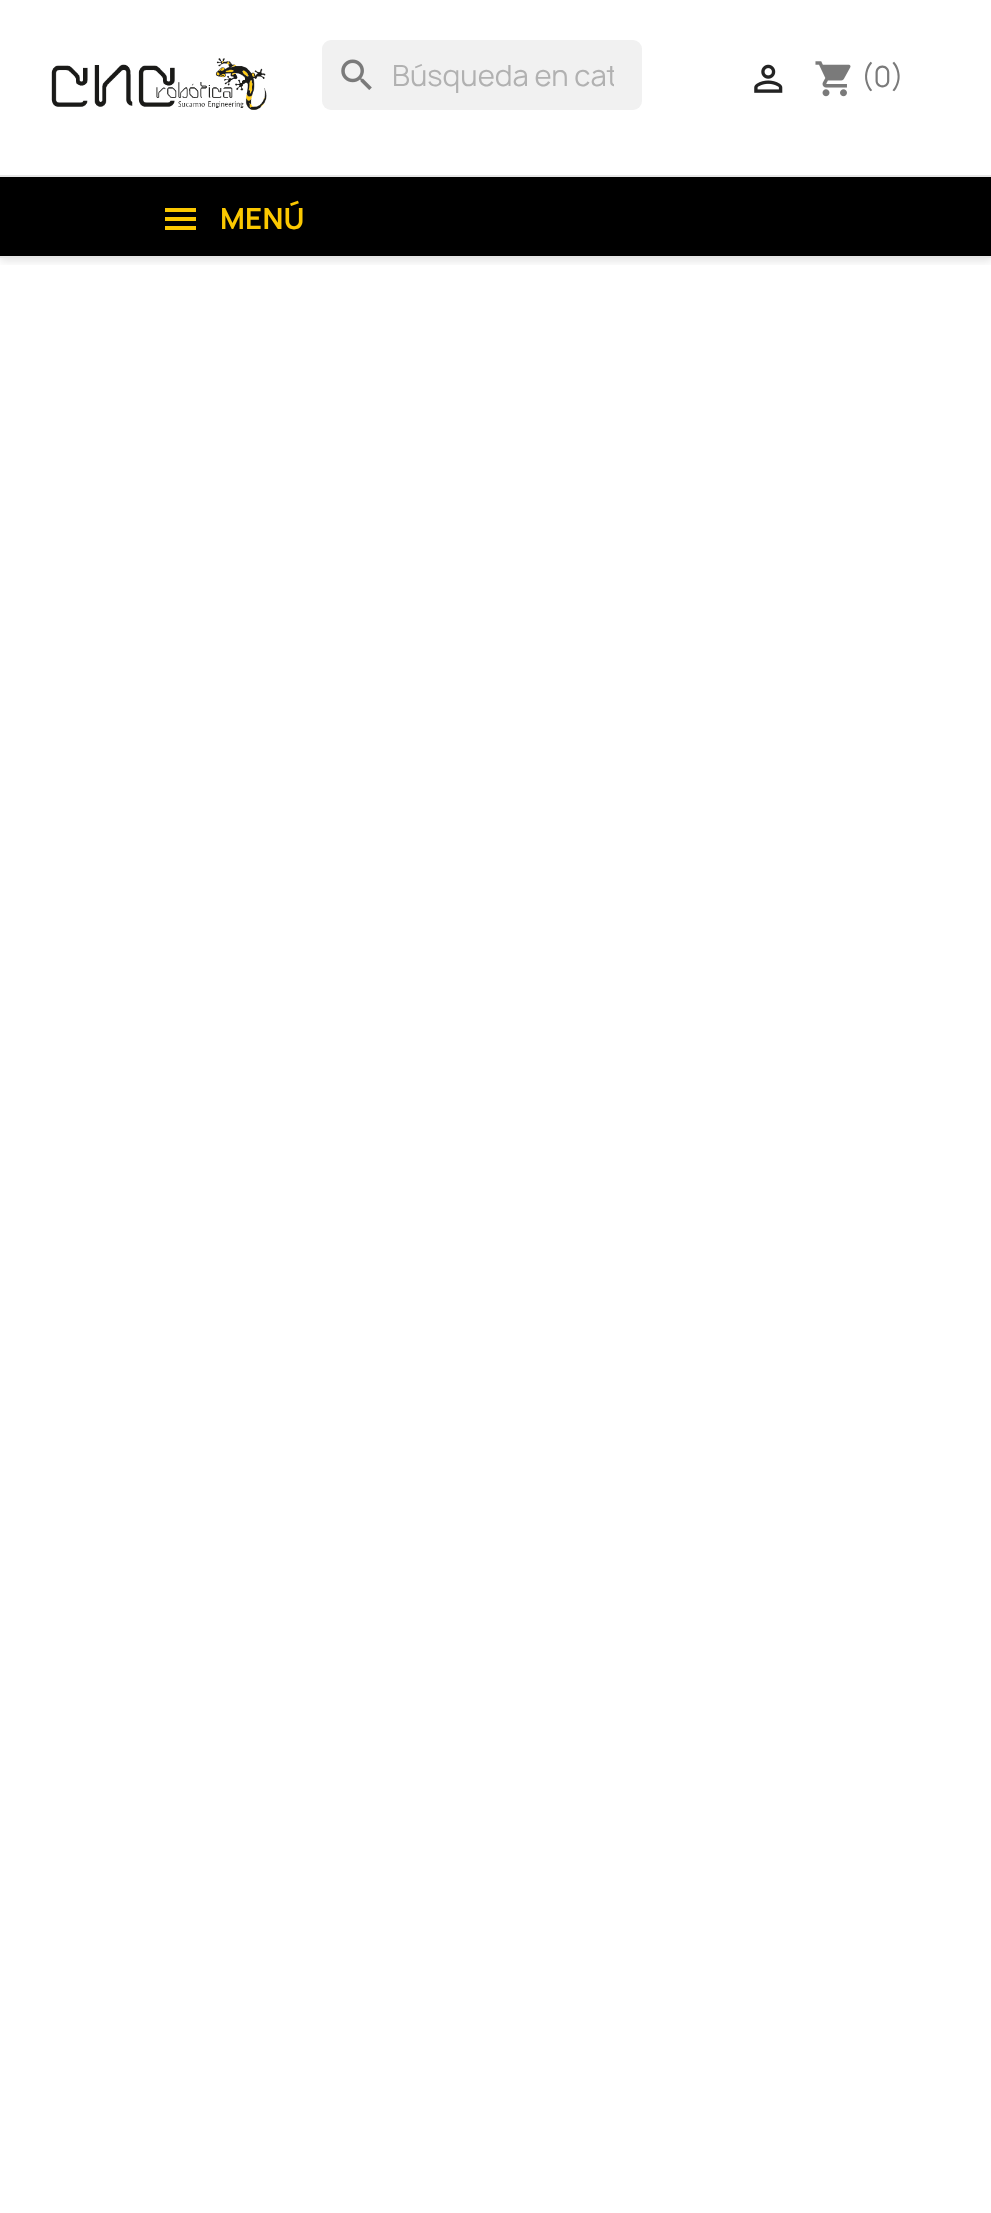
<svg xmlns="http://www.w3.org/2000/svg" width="991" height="2213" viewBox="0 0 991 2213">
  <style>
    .t1 { font: 28px Manrope; fill: #b1b1b1; }
    .t2 { font: 28px Manrope; fill: #7a7a7a; }
    .t3 { font: bold 28px Manrope; fill: #fbc800; }
  </style>
  <defs>
    <clipPath id="clip1"><rect x="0" y="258" width="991" height="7"/></clipPath>
    <clipPath id="clip2"><rect x="392" y="53" width="222" height="47"/></clipPath>
  </defs>
  <rect width="100%" height="100%" fill="#fff"/>
  <g clip-path="url(#clip1)">
    <rect x="0" y="4" width="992" height="257" fill="#0000001c" filter="blur(4.5px)"/>
  </g>
  <image x="51" y="58" width="216" height="52" href="images/1.png"/>
  <rect x="322" y="40" width="320" height="70" rx="9" fill="#f1f1f1"/>
  <image x="341" y="59" width="31" height="31" href="images/2.png"/>
  <g clip-path="url(#clip2)">
    <text x="392" y="86" class="t1">Búsqueda en cat</text>
  </g>
  <image x="754" y="64" width="29" height="29" href="images/3.png"/>
  <image x="815" y="61" width="36" height="36" href="images/4.png"/>
  <text x="861" y="87" class="t2">(0)</text>
  <rect x="0" y="175" width="991" height="2" fill="#e7e7e7"/>
  <rect x="0" y="256" width="991" height="2" fill="#e7e7e7"/>
  <rect x="0" y="177" width="991" height="79" fill="#000"/>
  <rect x="165" y="208" width="31" height="4" fill="#fbc800"/>
  <rect x="165" y="217" width="31" height="4" fill="#fbc800"/>
  <rect x="165" y="226" width="31" height="4" fill="#fbc800"/>
  <text x="220" y="229" class="t3">MENÚ</text>
</svg>
